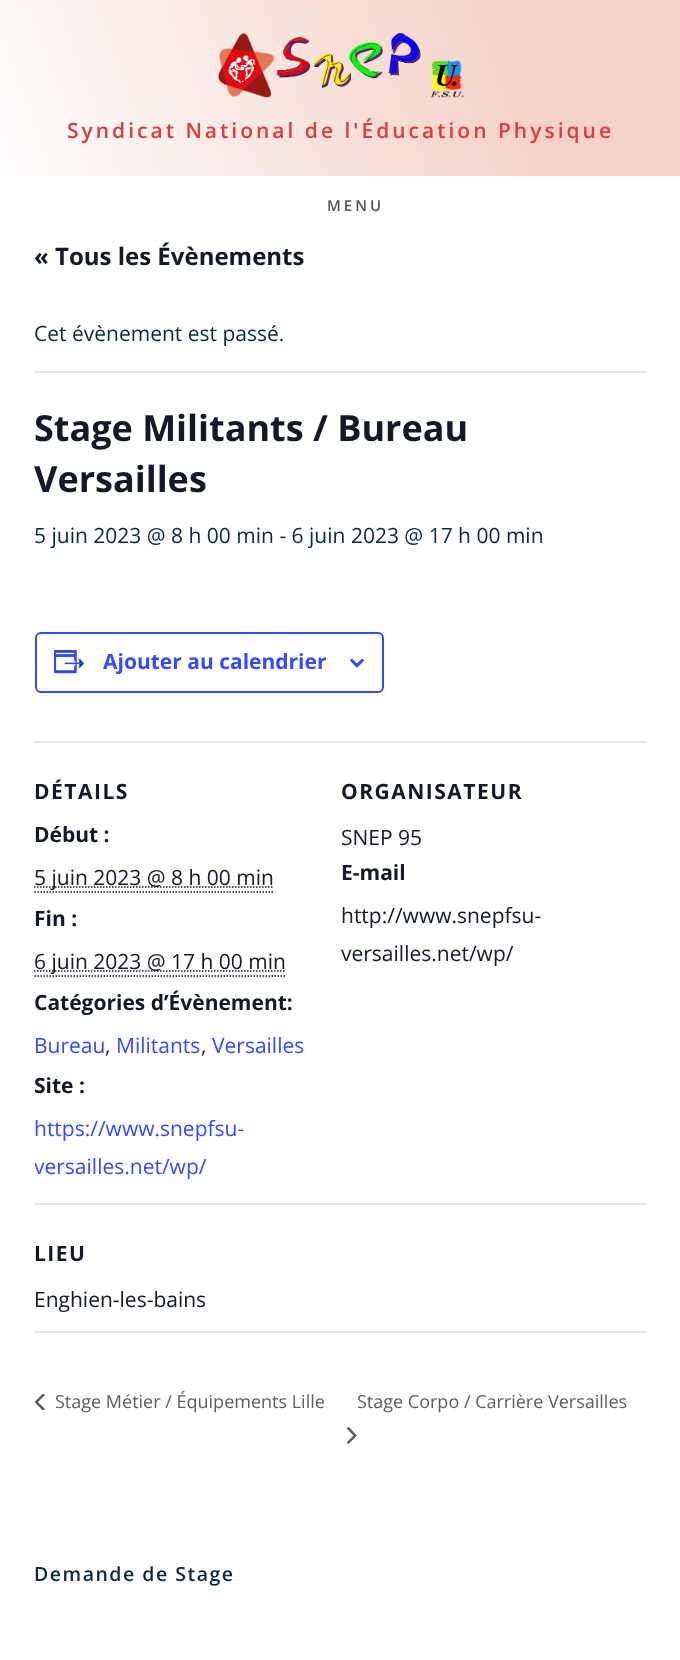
<svg xmlns="http://www.w3.org/2000/svg" width="680" height="1660" viewBox="0 0 680 1660">
  <style>
    .t1 { font: 600 21px Open Sans; letter-spacing: 3px; fill: #e03a3e; }
    .t2 { font: 600 15px Open Sans; letter-spacing: 3px; fill: #555; }
    .t3 { font: bold 24px Open Sans; fill: #141827; }
    .t4 { font: 21px Open Sans; fill: #072b3a; }
    .t5 { font: bold 36px Open Sans; fill: #141827; }
    .t6 { font: bold 21px Open Sans; fill: #334aff; }
    .t7 { font: bold 21px Open Sans; letter-spacing: 1.5px; fill: #141827; }
    .t8 { font: bold 21px Open Sans; fill: #141827; }
    .t9 { font: 21px Open Sans; fill: #141827; }
    .t10 { font: 21px Open Sans; fill: #334aff; }
    .t11 { font: 18px Open Sans; fill: #5d5d5d; }
    .t12 { font: 600 19.5px Open Sans; letter-spacing: 1.5px; fill: #072b3a; }
  </style>
  <defs>
    <linearGradient id="g1" gradientUnits="userSpaceOnUse" x1="2" y1="241" x2="679" y2="-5.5"><stop offset="0" stop-color="#fff"/><stop offset="0.75" stop-color="#f4d2c7"/></linearGradient>
    <clipPath id="clip1"><rect x="35" y="584" width="612" height="747"/></clipPath>
    <clipPath id="clip2"><rect x="35" y="1394" width="10" height="16"/></clipPath>
    <clipPath id="clip3"><rect x="347" y="1427" width="10" height="18"/></clipPath>
  </defs>
  <rect width="100%" height="100%" fill="#fff"/>
  <rect x="0" y="0" width="680" height="176" fill="url(#g1)"/>
  <image x="218" y="33" width="246" height="65" href="images/1.png"/>
  <text x="67" y="138" class="t1">Syndicat National de l'Éducation Physique</text>
  <text x="327" y="211" class="t2">MENU</text>
  <text x="34" y="265" class="t3">« Tous les Évènements</text>
  <rect x="35" y="371" width="612" height="2" fill="#e4e4e4"/>
  <text x="34" y="341" class="t4">Cet évènement est passé.</text>
  <text x="34" y="441" class="t5">Stage Militants / Bureau</text>
  <text x="34" y="492" class="t5">Versailles</text>
  <text x="34" y="543" class="t4">5 juin 2023 @ 8 h 00 min - 6 juin 2023 @ 17 h 00 min</text>
  <rect x="36" y="633" width="347" height="59" rx="5" fill="none" stroke="#334aff" stroke-width="2"/>
  <image x="54" y="650" width="31" height="24" href="images/2.png"/>
  <text x="103" y="669" class="t6">Ajouter au calendrier</text>
  <image x="350" y="659" width="15" height="9" href="images/3.png"/>
  <rect x="35" y="741" width="612" height="2" fill="#e4e4e4"/>
  <text x="34" y="799" class="t7">DÉTAILS</text>
  <text x="34" y="842" class="t8">Début :</text>
  <path d="M34 887H274" fill="none" stroke="#141827" stroke-width="1.5" stroke-dasharray="1.5 1.5"/>
  <text x="34" y="885" class="t9">5 juin 2023 @ 8 h 00 min</text>
  <path d="M34.5 892H274.5" fill="none" stroke="#141827" stroke-width="1.5" stroke-dasharray="1.5 1.5"/>
  <text x="34" y="926" class="t8">Fin :</text>
  <path d="M34 971H286" fill="none" stroke="#141827" stroke-width="1.5" stroke-dasharray="1.5 1.5"/>
  <text x="34" y="969" class="t9">6 juin 2023 @ 17 h 00 min</text>
  <path d="M34.5 976H286.5" fill="none" stroke="#141827" stroke-width="1.5" stroke-dasharray="1.5 1.5"/>
  <text x="34" y="1010" class="t8">Catégories d’Évènement:</text>
  <text x="34" y="1053" class="t10">Bureau</text>
  <text x="105" y="1053" class="t9">,</text>
  <text x="116" y="1053" class="t10">Militants</text>
  <text x="201" y="1053" class="t9">,</text>
  <text x="212" y="1053" class="t10">Versailles</text>
  <text x="34" y="1093" class="t8">Site :</text>
  <text x="34" y="1136" class="t10">https://www.snepfsu-</text>
  <g clip-path="url(#clip1)">
    <text x="34" y="1174" class="t10">versailles.net/wp/</text>
  </g>
  <text x="341" y="799" class="t7">ORGANISATEUR</text>
  <text x="341" y="845" class="t9">SNEP 95</text>
  <text x="341" y="880" class="t8">E-mail</text>
  <text x="341" y="923" class="t9">http://www.snepfsu-</text>
  <text x="341" y="961" class="t9">versailles.net/wp/</text>
  <rect x="35" y="1203" width="612" height="2" fill="#e4e4e4"/>
  <text x="34" y="1261" class="t7">LIEU</text>
  <text x="34" y="1307" class="t9">Enghien-les-bains</text>
  <rect x="35" y="1331" width="612" height="2" fill="#e4e4e4"/>
  <g clip-path="url(#clip2)">
    <path d="M45 1409L43 1411L34.5 1402L43 1393.5L45 1395L38 1402Z" fill="#5d5d5d"/>
  </g>
  <text x="55" y="1408" class="t11">Stage Métier / Équipements Lille</text>
  <text x="357" y="1408" class="t11">Stage Corpo / Carrière Versailles</text>
  <g clip-path="url(#clip3)">
    <path d="M346.5 1428.5L348.5 1426.5L357 1435.5L348.5 1444L346.5 1442.5L353.5 1435.5Z" fill="#5d5d5d"/>
  </g>
  <text x="34" y="1581" class="t12">Demande de Stage</text>
</svg>
